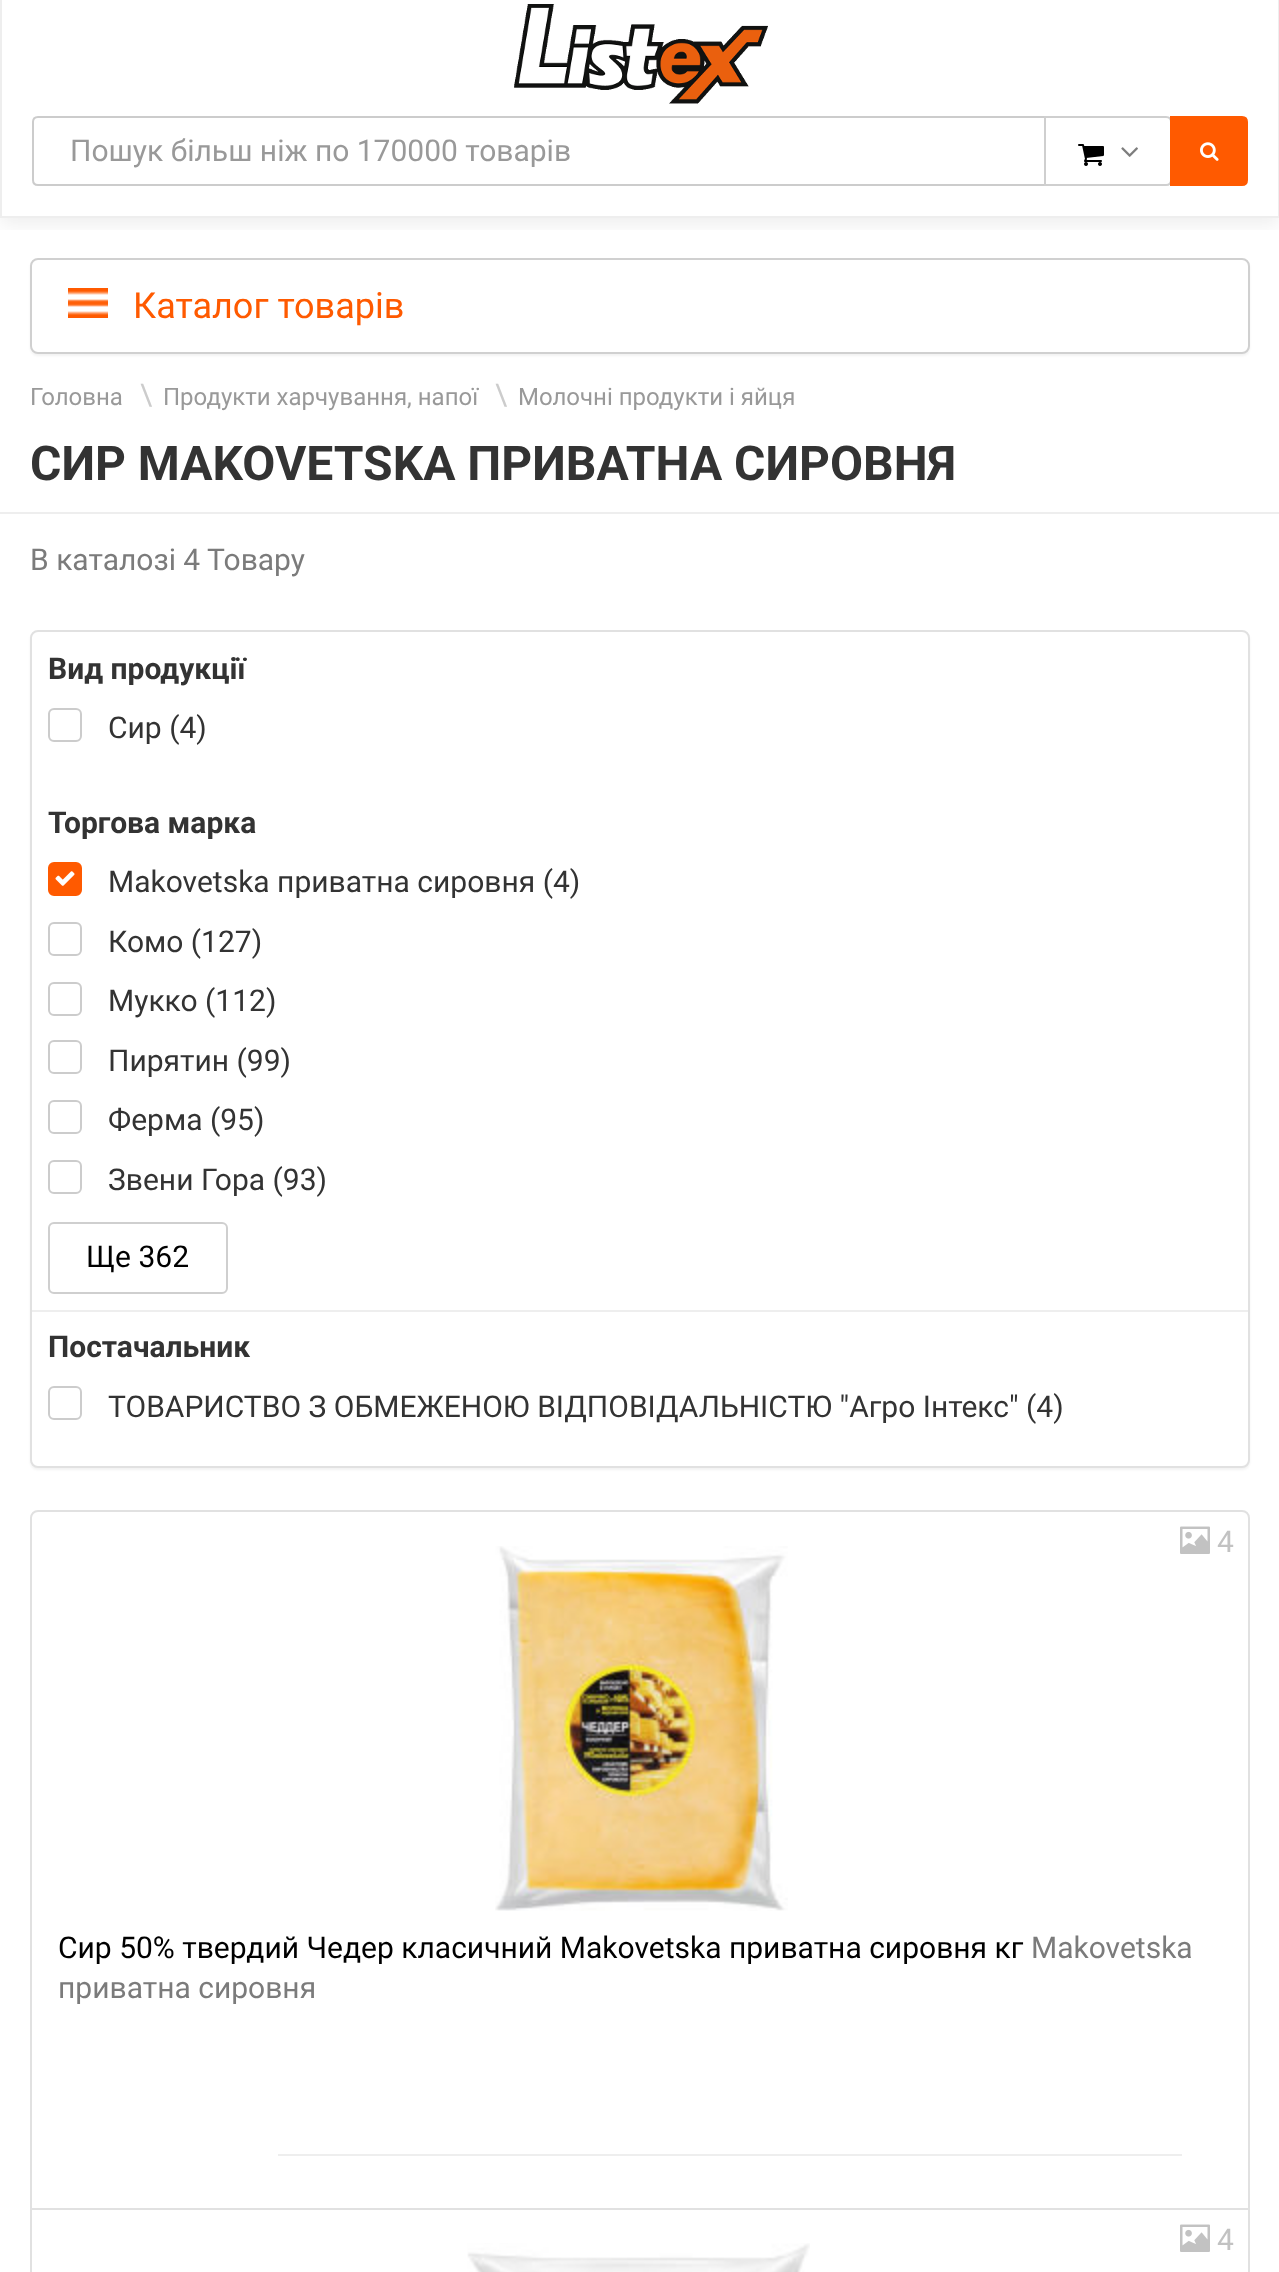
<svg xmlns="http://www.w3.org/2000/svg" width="1279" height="2272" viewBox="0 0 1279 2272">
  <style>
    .t1 { font: 30px Roboto; fill: #999; }
    .t2 { font: 36px Roboto; fill: #ff5a00; }
    .t3 { font: 24px Roboto; fill: #999; }
    .t4 { font: 30px Roboto; fill: #ccc; }
    .t5 { font: bold 48px Roboto; fill: #333; }
    .t6 { font: 30px Roboto; fill: #7b7b7b; }
    .t7 { font: bold 30px Roboto; fill: #333; }
    .t8 { font: 30px Roboto; fill: #333; }
    .t9 { font: 30px Roboto; fill: #000; }
    .t10 { font: 30px Roboto; fill: #c2c2c2; }
  </style>
  <defs>
    <clipPath id="clip1"><rect x="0" y="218" width="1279" height="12"/></clipPath>
  </defs>
  <rect width="100%" height="100%" fill="#fff"/>
  <g clip-path="url(#clip1)">
    <rect x="0" y="-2" width="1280" height="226" fill="#00000012" filter="blur(10px)"/>
  </g>
  <rect x="1" y="-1" width="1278" height="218" fill="none" stroke="#eee" stroke-width="2"/>
  <image x="514" y="4" width="254" height="100" href="images/1.png"/>
  <path d="M38 117H1051V185H38C35 185 33 183 33 180V122C33 119 35 117 38 117Z" fill="none" stroke="#ccc" stroke-width="2"/>
  <text x="70" y="161" class="t1">Пошук більш ніж по 170000 товарів</text>
  <path d="M1045 117H1166C1169 117 1171 119 1171 122V180C1171 183 1169 185 1166 185H1045Z" fill="#fff" stroke="#cfcfcf" stroke-width="2"/>
  <image x="1078" y="144" width="26" height="22" href="images/2.png"/>
  <image x="1121" y="147" width="17" height="10" href="images/3.png"/>
  <path d="M1171 117H1242C1245 117 1247 119 1247 122V180C1247 183 1245 185 1242 185H1171Z" fill="#ff5a00" stroke="#ff5a00" stroke-width="2"/>
  <image x="1200" y="142" width="19" height="19" href="images/4.png"/>
  <rect x="30" y="260" width="1220" height="96" rx="8" fill="#0000000d" filter="blur(1px)"/>
  <rect x="31" y="259" width="1218" height="94" rx="7" fill="#fff" stroke="#d0d0d0" stroke-width="2"/>
  <image x="68" y="288" width="40" height="30" href="images/5.png"/>
  <text x="133" y="318" class="t2">Каталог товарів</text>
  <rect x="0" y="512" width="1279" height="2" fill="#eee"/>
  <text x="30" y="405" class="t3">Головна</text>
  <text x="140" y="405" class="t4">\</text>
  <text x="163" y="405" class="t3">Продукти харчування, напої</text>
  <text x="495" y="405" class="t4">\</text>
  <text x="518" y="405" class="t3">Молочні продукти і яйця</text>
  <text x="30" y="480" class="t5">СИР MAKOVETSKA ПРИВАТНА СИРОВНЯ</text>
  <text x="30" y="570" class="t6">В каталозі 4 Товару</text>
  <rect x="30" y="632" width="1220" height="838" rx="8" fill="#0000000d" filter="blur(1px)"/>
  <rect x="31" y="631" width="1218" height="836" rx="7" fill="#fff" stroke="#e1e1e1" stroke-width="2"/>
  <text x="48" y="679" class="t7">Вид продукції</text>
  <rect x="49" y="709" width="32" height="32" rx="5" fill="none" stroke="#ccc" stroke-width="2"/>
  <text x="108" y="738" class="t8">Сир (4)</text>
  <text x="48" y="833" class="t7">Торгова марка</text>
  <rect x="49" y="863" width="32" height="32" rx="5" fill="#ff5a00" stroke="#ff5a00" stroke-width="2"/>
  <text x="108" y="892" class="t8">Makovetska приватна сировня (4)</text>
  <image x="55" y="871" width="20" height="15" href="images/6.png"/>
  <rect x="49" y="923" width="32" height="32" rx="5" fill="none" stroke="#ccc" stroke-width="2"/>
  <text x="108" y="952" class="t8">Комо (127)</text>
  <rect x="49" y="983" width="32" height="32" rx="5" fill="none" stroke="#ccc" stroke-width="2"/>
  <text x="108" y="1011" class="t8">Мукко (112)</text>
  <rect x="49" y="1041" width="32" height="32" rx="5" fill="none" stroke="#ccc" stroke-width="2"/>
  <text x="108" y="1071" class="t8">Пирятин (99)</text>
  <rect x="49" y="1101" width="32" height="32" rx="5" fill="none" stroke="#ccc" stroke-width="2"/>
  <text x="108" y="1130" class="t8">Ферма (95)</text>
  <rect x="49" y="1161" width="32" height="32" rx="5" fill="none" stroke="#ccc" stroke-width="2"/>
  <text x="108" y="1190" class="t8">Звени Гора (93)</text>
  <rect x="49" y="1223" width="178" height="70" rx="5" fill="none" stroke="#cfcfcf" stroke-width="2"/>
  <text x="86" y="1267" class="t9">Ще 362</text>
  <rect x="32" y="1310" width="1216" height="2" fill="#eee"/>
  <text x="48" y="1357" class="t7">Постачальник</text>
  <rect x="49" y="1387" width="32" height="32" rx="5" fill="none" stroke="#ccc" stroke-width="2"/>
  <text x="108" y="1417" class="t8">ТОВАРИСТВО З ОБМЕЖЕНОЮ ВІДПОВІДАЛЬНІСТЮ "Агро Інтекс" (4)</text>
  <path d="M38 1511H1242C1246 1511 1249 1514 1249 1518V2209H31V1518C31 1514 34 1511 38 1511Z" fill="none" stroke="#e1e1e1" stroke-width="2"/>
  <image x="1180" y="1526" width="30" height="28" href="images/7.png"/>
  <text x="1217" y="1552" class="t10">4</text>
  <image x="495" y="1546" width="293" height="365" href="images/8.png"/>
  <text x="58" y="1958" class="t9">Сир 50% твердий Чедер класичний Makovetska приватна сировня кг</text>
  <text x="1031" y="1958" class="t6">Makovetska</text>
  <text x="58" y="1998" class="t6">приватна сировня</text>
  <rect x="278" y="2154" width="904" height="2" fill="#eee"/>
  <rect x="1248" y="2210" width="2" height="62" fill="#e1e1e1"/>
  <rect x="30" y="2210" width="2" height="62" fill="#e1e1e1"/>
  <image x="1180" y="2224" width="30" height="28" href="images/7.png"/>
  <text x="1217" y="2250" class="t10">4</text>
  <image x="467" y="2243" width="343" height="29" href="images/9.png"/>
</svg>
